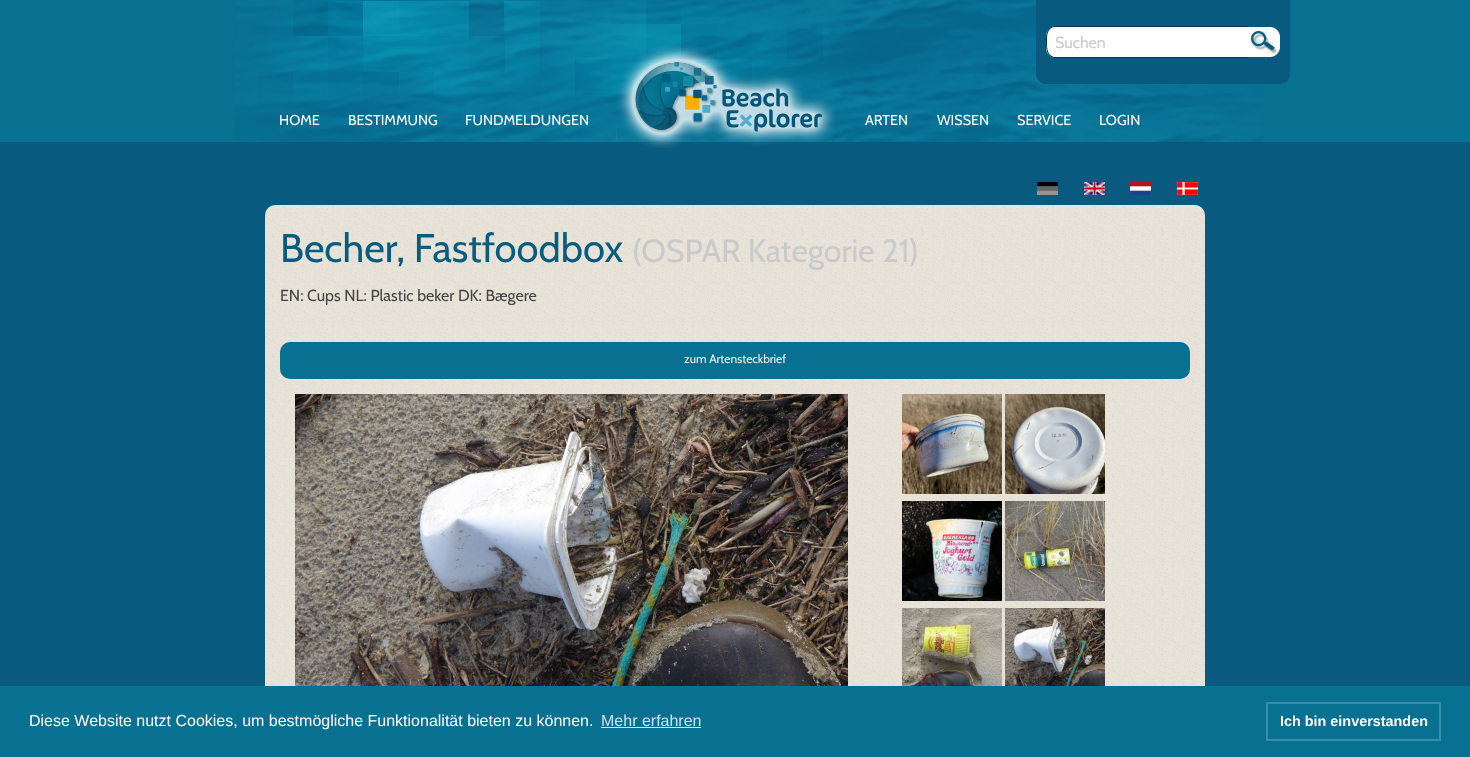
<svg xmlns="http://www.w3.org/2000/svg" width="1470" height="757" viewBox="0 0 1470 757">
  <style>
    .t1 { font: 16px Cabin; fill: #cacaca; }
    .t2 { font: 14.4px Cabin; fill: #fff; }
    .t3 { font: 40px Cabin; fill: #085c7e; }
    .t4 { font: 32px Cabin; fill: #cacaca; }
    .t5 { font: 16px Cabin; fill: #444; }
    .t6 { font: 12px Cabin; fill: #efefef; }
    .t7 { font: 16px Liberation Sans; fill: #fff; }
    .t8 { font: 16px Liberation Sans; fill: #cee2e9; }
    .t9 { font: bold 14.4px Liberation Sans; fill: #fff; }
  </style>
  <rect width="100%" height="100%" fill="#085b7e"/>
  <rect x="0" y="0" width="1470" height="142" fill="#087091"/>
  <image x="235" y="0" width="1028" height="142" href="images/1.png"/>
  <path d="M1036 0H1290V74C1290 79.5 1285.5 84 1280 84H1046C1040.5 84 1036 79.5 1036 74Z" fill="#085b7e"/>
  <path d="M1056 26H1248V58H1056C1050.5 58 1046 53.5 1046 48V36C1046 30.5 1050.5 26 1056 26Z" fill="#fefefe"/>
  <path d="M1056 26H1248V58H1054C1046 56 1046 48 1046 42C1046 35 1046 26 1056 26ZM1056 27H1248V57H1054C1047 55 1047 48 1047 42C1047 35 1047 27 1056 27Z" fill="#05355b" fill-rule="evenodd"/>
  <text x="1055" y="48" class="t1">Suchen</text>
  <path d="M1248 27H1270C1275.5 27 1280 31.5 1280 37V47C1280 52.5 1275.5 57 1270 57H1248Z" fill="#fff"/>
  <image x="1251" y="31" width="27" height="23" href="images/2.png"/>
  <image x="616" y="45" width="220" height="103" href="images/3.png"/>
  <text x="279" y="125" class="t2">HOME</text>
  <text x="348" y="125" class="t2">BESTIMMUNG</text>
  <text x="465" y="125" class="t2">FUNDMELDUNGEN</text>
  <text x="865" y="125" class="t2">ARTEN</text>
  <text x="937" y="125" class="t2">WISSEN</text>
  <text x="1017" y="125" class="t2">SERVICE</text>
  <text x="1099" y="125" class="t2">LOGIN</text>
  <image x="1037" y="182" width="21" height="13" href="images/4.png"/>
  <image x="1084" y="182" width="21" height="13" href="images/5.png"/>
  <image x="1130" y="182" width="21" height="13" href="images/6.png"/>
  <image x="1177" y="182" width="21" height="13" href="images/7.png"/>
  <image x="265" y="205" width="940" height="481" href="images/8.png"/>
  <text x="280" y="262" class="t3">Becher, Fastfoodbox</text>
  <text x="632" y="262" class="t4">(OSPAR Kategorie 21)</text>
  <text x="280" y="301" class="t5">EN: Cups NL: Plastic beker DK: Bægere</text>
  <rect x="280" y="342" width="910" height="37" rx="10" fill="#087091"/>
  <text x="684" y="363" class="t6">zum Artensteckbrief</text>
  <image x="295" y="394" width="553" height="292" href="images/9.png"/>
  <image x="902" y="394" width="100" height="100" href="images/10.png"/>
  <image x="1005" y="394" width="100" height="100" href="images/11.png"/>
  <image x="902" y="501" width="100" height="100" href="images/12.png"/>
  <image x="1005" y="501" width="100" height="100" href="images/13.png"/>
  <image x="902" y="608" width="100" height="78" href="images/14.png"/>
  <image x="1005" y="608" width="100" height="78" href="images/15.png"/>
  <rect x="0" y="686" width="1470" height="71" fill="#087091"/>
  <text x="29" y="726" class="t7">Diese Website nutzt Cookies, um bestmögliche Funktionalität bieten zu können.</text>
  <text x="601" y="726" class="t8">Mehr erfahren</text>
  <rect x="601" y="727" width="100" height="1" fill="#cee2e9"/>
  <rect x="1267" y="703" width="173" height="37" fill="none" stroke="#398da7" stroke-width="2"/>
  <text x="1280" y="726" class="t9">Ich bin einverstanden</text>
</svg>
